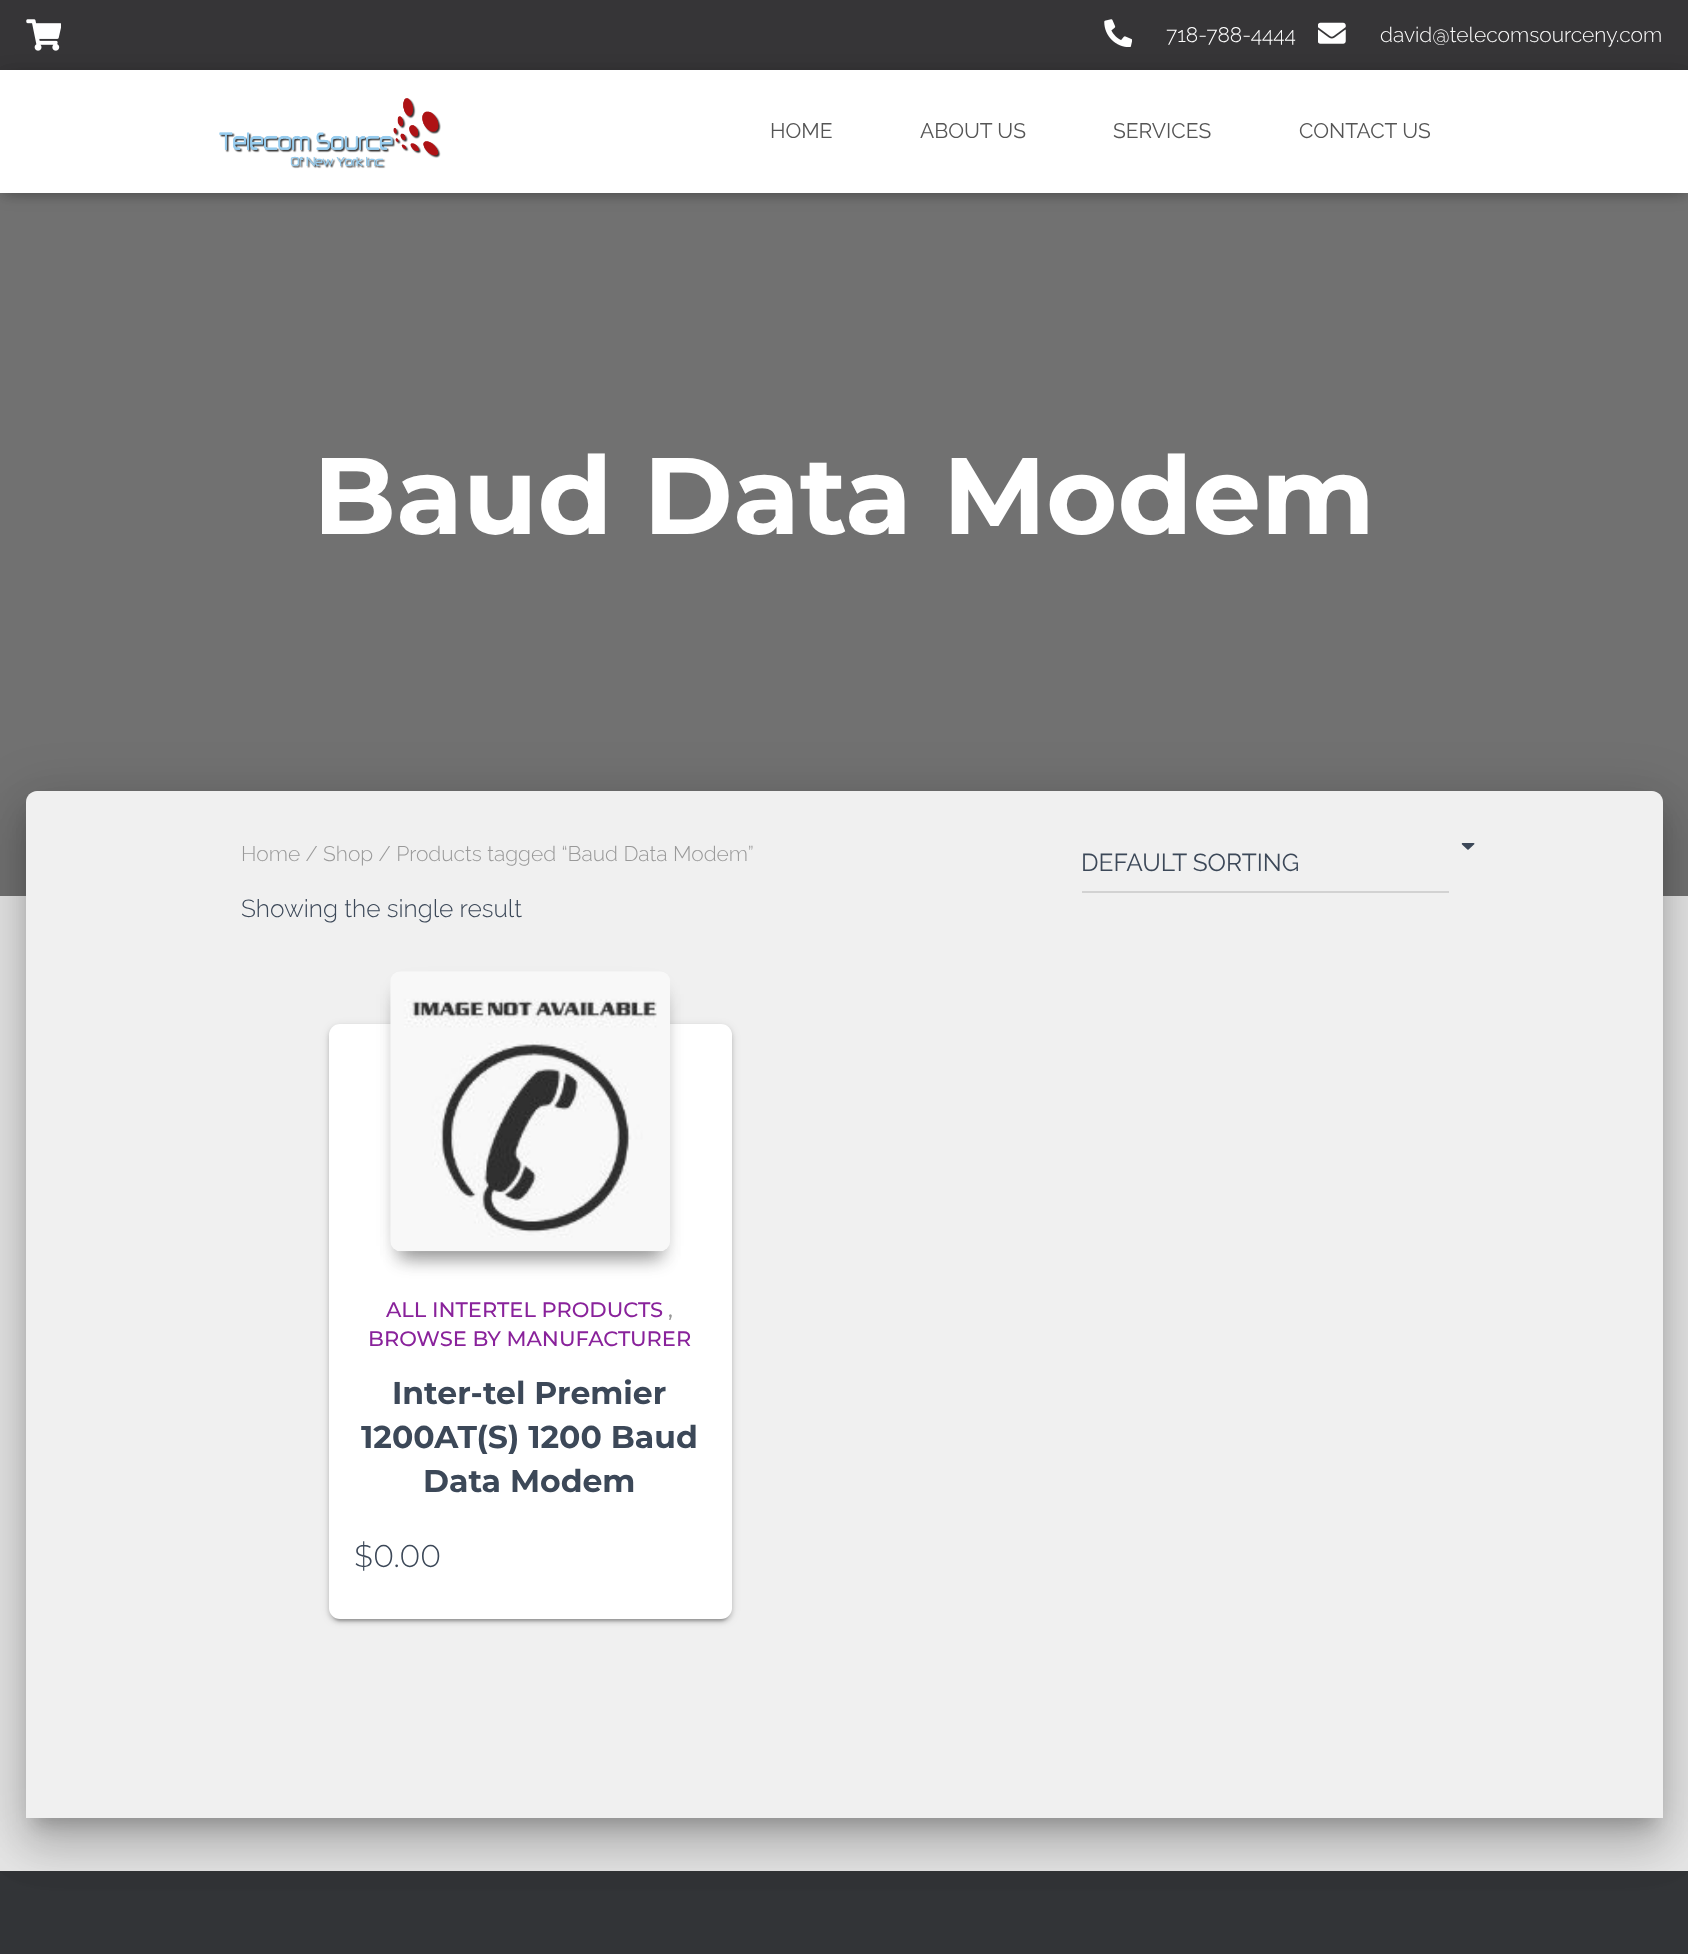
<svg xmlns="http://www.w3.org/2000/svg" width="1688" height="1954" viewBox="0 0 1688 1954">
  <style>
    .t1 { font: 300 21px Raleway; fill: #fff; }
    .t2 { font: 21px Raleway; fill: #555; }
    .t3 { font: bold 108.5px Montserrat; fill: #fff; }
    .t4 { font: 300 21px Raleway; fill: #999; }
    .t5 { font: 300 24.5px Raleway; fill: #3c4858; }
    .t6 { font: 24.5px Raleway; fill: #3c4858; }
    .t7 { font: 500 21px Montserrat; fill: #89229b; }
    .t8 { font: 500 21px Montserrat; fill: #999; }
    .t9 { font: bold 31.5px Montserrat; fill: #3c4858; }
    .t10 { font: 300 31.5px Montserrat; fill: #3c4858; }
  </style>
  <rect width="100%" height="100%" fill="#e5e5e5"/>
  <rect x="0" y="0" width="1688" height="70" fill="#363537"/>
  <image x="26" y="19" width="35" height="32" href="images/1.png"/>
  <image x="1104" y="19" width="28" height="28" href="images/2.png"/>
  <text x="1166" y="42" class="t1">718-788-4444</text>
  <image x="1318" y="22" width="28" height="22" href="images/3.png"/>
  <text x="1380" y="42" class="t1">david@telecomsourceny.com</text>
  <rect x="0" y="193" width="1688" height="703" fill="#717171"/>
  <rect x="4" y="81" width="1681" height="115" fill="#0000001a" filter="blur(4.5px)"/>
  <rect x="0" y="72" width="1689" height="122" fill="#0000001f" filter="blur(9px)"/>
  <rect x="11" y="82" width="1667" height="102" fill="#0000006b" filter="blur(9px)"/>
  <rect x="0" y="70" width="1688" height="123" fill="#fff"/>
  <image x="219" y="98" width="222" height="71" href="images/4.png"/>
  <text x="770" y="138" class="t2">HOME</text>
  <text x="920" y="138" class="t2">ABOUT US</text>
  <text x="1113" y="138" class="t2">SERVICES</text>
  <text x="1299" y="138" class="t2">CONTACT US</text>
  <text x="313" y="534" class="t3">Baud Data Modem</text>
  <rect x="35" y="814" width="1619" height="1010" rx="2" fill="#00000033" filter="blur(9px)"/>
  <rect x="0" y="1871" width="1688" height="83" fill="#323437"/>
  <rect x="18" y="793" width="1653" height="1045" rx="19" fill="#0000001f" filter="blur(26px)"/>
  <rect x="23" y="816" width="1643" height="1034" rx="14" fill="#00000024" filter="blur(21px)"/>
  <path d="M37 791H1652C1658 791 1663 796 1663 802V1818H26V802C26 796 31 791 37 791Z" fill="#f0f0f0"/>
  <text x="241" y="861" class="t4">Home / Shop / Products tagged “Baud Data Modem”</text>
  <text x="241" y="917" class="t5">Showing the single result</text>
  <image x="1461" y="843" width="14" height="7" href="images/5.png"/>
  <rect x="1082" y="891" width="367" height="2" fill="#d2d2d2"/>
  <text x="1081" y="871" class="t6">DEFAULT SORTING</text>
  <rect x="329" y="1026" width="403" height="595" rx="11" fill="#0000001f" filter="blur(4.5px)"/>
  <rect x="333" y="1033" width="395" height="588" rx="7" fill="#00000033" filter="blur(1px)"/>
  <rect x="329" y="1027" width="403" height="595" rx="11" fill="#00000024" filter="blur(2px)"/>
  <rect x="329" y="1024" width="403" height="595" rx="11" fill="#fff"/>
  <rect x="399" y="998" width="263" height="262" rx="2" fill="#00000033" filter="blur(9px)"/>
  <rect x="399" y="994" width="263" height="263" rx="2" fill="#00000033" filter="blur(9px)"/>
  <rect x="404" y="994" width="252" height="252" fill="#0000003d" filter="blur(13px)"/>
  <image x="390" y="971" width="280" height="281" href="images/6.png"/>
  <text x="386" y="1317" class="t7">ALL INTERTEL PRODUCTS</text>
  <text x="668" y="1317" class="t8">,</text>
  <text x="368" y="1346" class="t7">BROWSE BY MANUFACTURER</text>
  <text x="392" y="1404" class="t9">Inter-tel Premier</text>
  <text x="361" y="1448" class="t9">1200AT(S) 1200 Baud</text>
  <text x="423" y="1492" class="t9">Data Modem</text>
  <text x="354" y="1567" class="t10">$0.00</text>
</svg>
